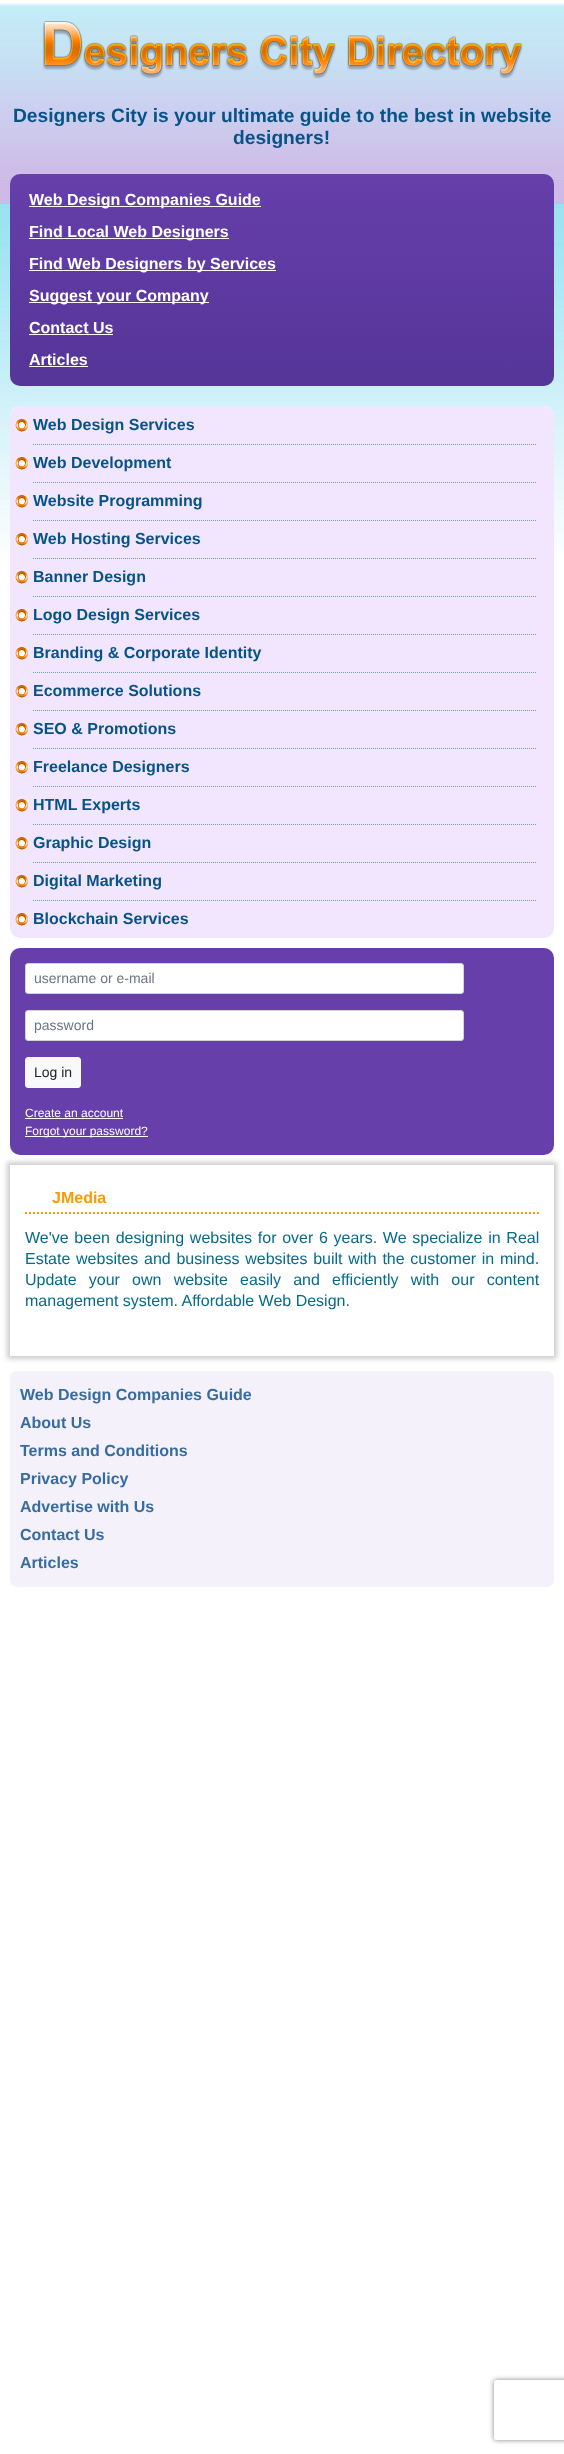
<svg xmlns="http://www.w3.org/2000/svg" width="564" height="2454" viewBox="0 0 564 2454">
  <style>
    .t1 { font: bold 19.2px Liberation Sans; fill: #075388; }
    .t2 { font: bold 16px Liberation Sans; fill: #fff; }
    .t3 { font: bold 16px Liberation Sans; fill: #075388; }
    .t4 { font: 14px Liberation Sans; fill: #6c757d; }
    .t5 { font: 14px Liberation Sans; fill: #212529; }
    .t6 { font: 12px Liberation Sans; fill: #fff; }
    .t7 { font: bold 16px Liberation Sans; fill: #ff9806; }
    .t8 { font: 16px Liberation Sans; fill: #066a8b; }
    .t9 { font: bold 16px Liberation Sans; fill: #376ca0; }
  </style>
  <defs>
    <linearGradient id="g1" gradientUnits="userSpaceOnUse" x1="282" y1="174" x2="282" y2="386"><stop offset="0" stop-color="#663faa"/><stop offset="1" stop-color="#553598"/></linearGradient>
    <clipPath id="clip1"><path d="M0 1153H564V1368H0ZM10 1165H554V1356H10Z" clip-rule="evenodd"/></clipPath>
    <clipPath id="clip2"><path d="M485 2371H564V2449H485ZM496 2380H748C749 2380 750 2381 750 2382V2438C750 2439 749 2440 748 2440H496C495 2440 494 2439 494 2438V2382C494 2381 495 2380 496 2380Z" clip-rule="evenodd"/></clipPath>
  </defs>
  <rect width="100%" height="100%" fill="#fff"/>
  <image x="0" y="0" width="564" height="552" href="images/1.png"/>
  <image x="42" y="21" width="481" height="58" href="images/2.png"/>
  <text x="13" y="122" class="t1">Designers City is your ultimate guide to the best in website</text>
  <text x="233" y="144" class="t1">designers!</text>
  <rect x="10" y="174" width="544" height="212" rx="10" fill="url(#g1)"/>
  <rect x="29" y="206" width="232" height="1" fill="#fff"/>
  <text x="29" y="205" class="t2">Web Design Companies Guide</text>
  <rect x="29" y="238" width="200" height="1" fill="#fff"/>
  <text x="29" y="237" class="t2">Find Local Web Designers</text>
  <rect x="29" y="270" width="247" height="1" fill="#fff"/>
  <text x="29" y="269" class="t2">Find Web Designers by Services</text>
  <rect x="29" y="302" width="180" height="1" fill="#fff"/>
  <text x="29" y="301" class="t2">Suggest your Company</text>
  <text x="29" y="333" class="t2">Contact Us</text>
  <rect x="29" y="334" width="84" height="1" fill="#fff"/>
  <text x="29" y="365" class="t2">Articles</text>
  <rect x="29" y="366" width="59" height="1" fill="#fff"/>
  <path d="M20 406H544C549.5 406 554 410.5 554 416V1155H10V416C10 410.5 14.5 406 20 406Z" fill="#fff"/>
  <rect x="10" y="406" width="544" height="532" rx="10" fill="#f1e6fe"/>
  <image x="15" y="419" width="13" height="13" href="images/3.png"/>
  <text x="33" y="430" class="t3">Web Design Services</text>
  <path d="M33 444.5H536" fill="none" stroke="#6e9cc1" stroke-dasharray="1 1"/>
  <image x="15" y="457" width="13" height="13" href="images/3.png"/>
  <text x="33" y="468" class="t3">Web Development</text>
  <path d="M33 482.5H536" fill="none" stroke="#6e9cc1" stroke-dasharray="1 1"/>
  <image x="15" y="495" width="13" height="13" href="images/3.png"/>
  <text x="33" y="506" class="t3">Website Programming</text>
  <path d="M33 520.5H536" fill="none" stroke="#6e9cc1" stroke-dasharray="1 1"/>
  <image x="15" y="533" width="13" height="13" href="images/3.png"/>
  <text x="33" y="544" class="t3">Web Hosting Services</text>
  <path d="M33 558.5H536" fill="none" stroke="#6e9cc1" stroke-dasharray="1 1"/>
  <image x="15" y="571" width="13" height="13" href="images/3.png"/>
  <text x="33" y="582" class="t3">Banner Design</text>
  <path d="M33 596.5H536" fill="none" stroke="#6e9cc1" stroke-dasharray="1 1"/>
  <image x="15" y="609" width="13" height="13" href="images/3.png"/>
  <text x="33" y="620" class="t3">Logo Design Services</text>
  <path d="M33 634.5H536" fill="none" stroke="#6e9cc1" stroke-dasharray="1 1"/>
  <image x="15" y="647" width="13" height="13" href="images/3.png"/>
  <text x="33" y="658" class="t3">Branding &amp; Corporate Identity</text>
  <path d="M33 672.5H536" fill="none" stroke="#6e9cc1" stroke-dasharray="1 1"/>
  <image x="15" y="685" width="13" height="13" href="images/3.png"/>
  <text x="33" y="696" class="t3">Ecommerce Solutions</text>
  <path d="M33 710.5H536" fill="none" stroke="#6e9cc1" stroke-dasharray="1 1"/>
  <image x="15" y="723" width="13" height="13" href="images/3.png"/>
  <text x="33" y="734" class="t3">SEO &amp; Promotions</text>
  <path d="M33 748.5H536" fill="none" stroke="#6e9cc1" stroke-dasharray="1 1"/>
  <image x="15" y="761" width="13" height="13" href="images/3.png"/>
  <text x="33" y="772" class="t3">Freelance Designers</text>
  <path d="M33 786.5H536" fill="none" stroke="#6e9cc1" stroke-dasharray="1 1"/>
  <image x="15" y="799" width="13" height="13" href="images/3.png"/>
  <text x="33" y="810" class="t3">HTML Experts</text>
  <path d="M33 824.5H536" fill="none" stroke="#6e9cc1" stroke-dasharray="1 1"/>
  <image x="15" y="837" width="13" height="13" href="images/3.png"/>
  <text x="33" y="848" class="t3">Graphic Design</text>
  <path d="M33 862.5H536" fill="none" stroke="#6e9cc1" stroke-dasharray="1 1"/>
  <image x="15" y="875" width="13" height="13" href="images/3.png"/>
  <text x="33" y="886" class="t3">Digital Marketing</text>
  <path d="M33 900.5H536" fill="none" stroke="#6e9cc1" stroke-dasharray="1 1"/>
  <image x="15" y="913" width="13" height="13" href="images/3.png"/>
  <text x="33" y="924" class="t3">Blockchain Services</text>
  <g clip-path="url(#clip1)">
    <rect x="7" y="1162" width="550" height="197" fill="#5a5a5a4d" filter="blur(2.5px)"/>
  </g>
  <rect x="10" y="948" width="544" height="207" rx="10" fill="#663faa"/>
  <rect x="25.5" y="963.5" width="438" height="30" rx="2.5" fill="#fff" stroke="#ced4da"/>
  <text x="34" y="983" class="t4">username or e-mail</text>
  <rect x="25.5" y="1010.5" width="438" height="30" rx="2.5" fill="#fff" stroke="#ced4da"/>
  <text x="34" y="1030" class="t4">password</text>
  <rect x="25.5" y="1057.5" width="55" height="30" rx="2.5" fill="#f8f9fa" stroke="#f8f9fa"/>
  <text x="34" y="1077" class="t5">Log in</text>
  <text x="25" y="1117" class="t6">Create an account</text>
  <rect x="25" y="1118" width="98" height="1" fill="#fff"/>
  <rect x="25" y="1136" width="123" height="1" fill="#fff"/>
  <text x="25" y="1135" class="t6">Forgot your password?</text>
  <text x="52" y="1203" class="t7">JMedia</text>
  <path d="M25 1213H539" fill="none" stroke="#ff9806" stroke-width="2" stroke-dasharray="2 2"/>
  <text x="25" y="1243" word-spacing="1.25" class="t8">We've been designing websites for over 6 years. We specialize in Real</text>
  <text x="25" y="1264" word-spacing="1.25" class="t8">Estate websites and business websites built with the customer in mind.</text>
  <text x="25" y="1285" word-spacing="7.75" class="t8">Update your own website easily and efficiently with our content</text>
  <text x="25" y="1306" class="t8">management system. Affordable Web Design.</text>
  <rect x="10" y="1371" width="544" height="216" rx="7" fill="#f4f1fa"/>
  <text x="20" y="1400" class="t9">Web Design Companies Guide</text>
  <text x="20" y="1428" class="t9">About Us</text>
  <text x="20" y="1456" class="t9">Terms and Conditions</text>
  <text x="20" y="1484" class="t9">Privacy Policy</text>
  <text x="20" y="1512" class="t9">Advertise with Us</text>
  <text x="20" y="1540" class="t9">Contact Us</text>
  <text x="20" y="1568" class="t9">Articles</text>
  <g clip-path="url(#clip2)">
    <rect x="494" y="2380" width="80" height="60" rx="2" fill="#808080" filter="blur(2.5px)"/>
  </g>
</svg>
